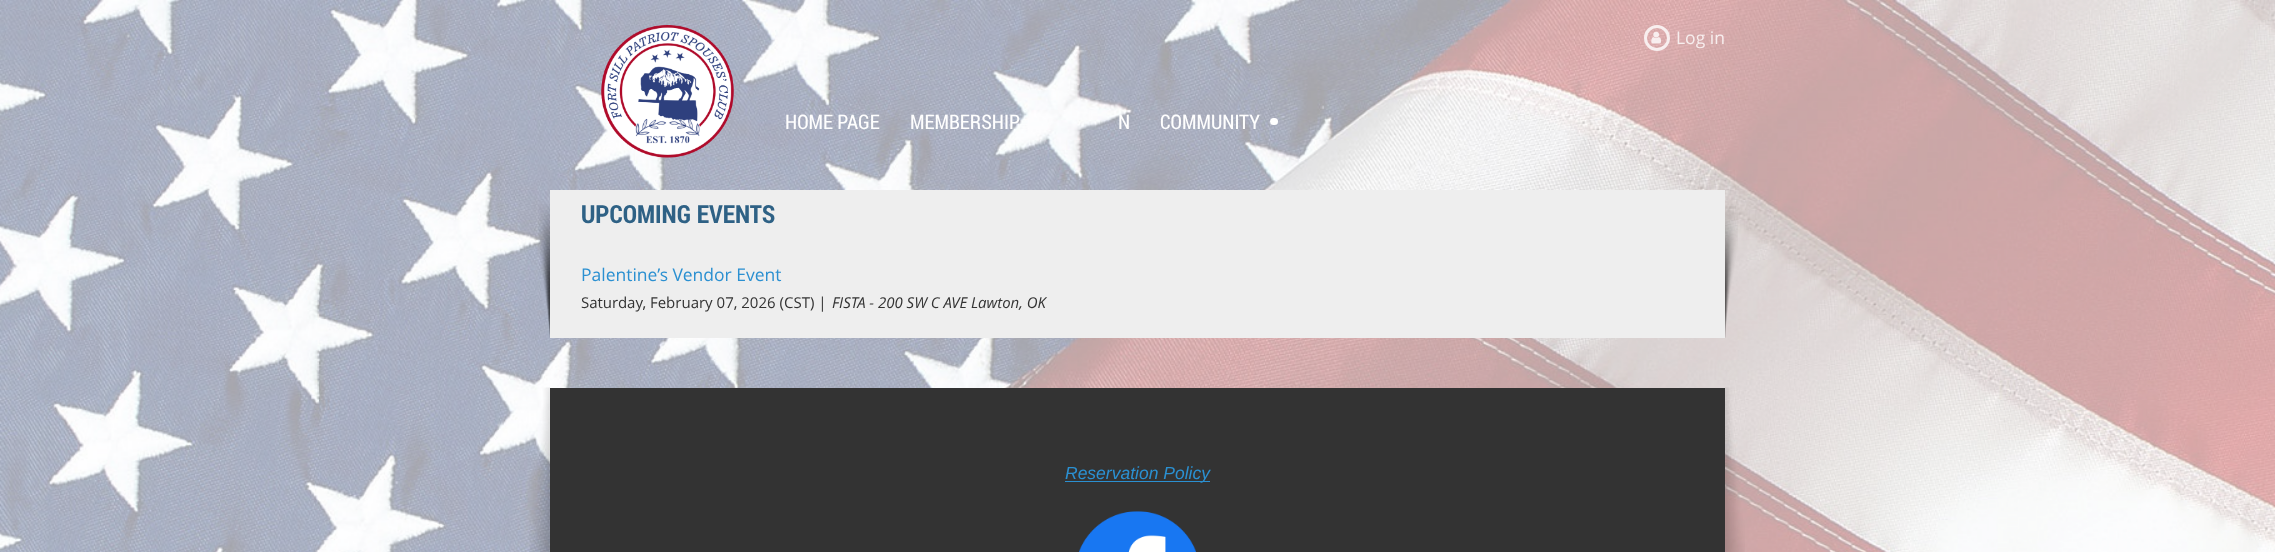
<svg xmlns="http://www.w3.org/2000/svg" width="2275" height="552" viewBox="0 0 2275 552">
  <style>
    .t1 { font: 17.5px Open Sans; fill: #f7eeee; }
    .t2 { font: 20px Roboto Condensed; fill: #fefefe; }
    .t3 { font: bold 25px Roboto Condensed; fill: #2e6185; }
    .t4 { font: 17.5px Open Sans; fill: #2b90d1; }
    .t5 { font: 15px Open Sans; fill: #333; }
    .t6 { font: italic 15px Open Sans; fill: #333; }
    .t7 { font: italic 17.5px Liberation Sans; fill: #2b90d1; }
  </style>
  <rect width="100%" height="100%" fill="#fff"/>
  <image x="0" y="0" width="2275" height="552" href="images/1.png"/>
  <image x="601" y="25" width="133" height="133" href="images/2.png"/>
  <circle cx="1657" cy="38" r="11.5" fill="none" stroke="#ffffffcc" stroke-width="3"/>
  <image x="1651" y="31" width="10" height="13" href="images/3.png"/>
  <text x="1676" y="44" class="t1">Log in</text>
  <text x="785" y="129" class="t2">HOME PAGE</text>
  <text x="910" y="129" class="t2">MEMBERSHIP</text>
  <text x="1118" y="129" class="t2">N</text>
  <text x="1160" y="129" class="t2">COMMUNITY</text>
  <rect x="1270" y="118" width="8" height="7" rx="3.5" fill="#fff"/>
  <image x="538" y="204" width="12" height="134" href="images/4.png"/>
  <rect x="550" y="190" width="1175" height="148" fill="#eee"/>
  <text x="581" y="223" class="t3">UPCOMING EVENTS</text>
  <text x="581" y="281" class="t4">Palentine’s Vendor Event</text>
  <text x="581" y="308" class="t5">Saturday, February 07, 2026 (CST) |</text>
  <text x="832" y="308" class="t6">FISTA - 200 SW C AVE Lawton, OK</text>
  <image x="1725" y="204" width="13" height="134" href="images/5.png"/>
  <image x="529" y="387" width="21" height="165" href="images/6.png"/>
  <rect x="550" y="388" width="1175" height="164" fill="#333"/>
  <rect x="1065" y="481" width="145" height="1" fill="#2b90d1"/>
  <text x="1065" y="479" class="t7">Reservation Policy</text>
  <image x="1079" y="511" width="117" height="41" href="images/7.png"/>
  <image x="1725" y="387" width="20" height="165" href="images/8.png"/>
</svg>
